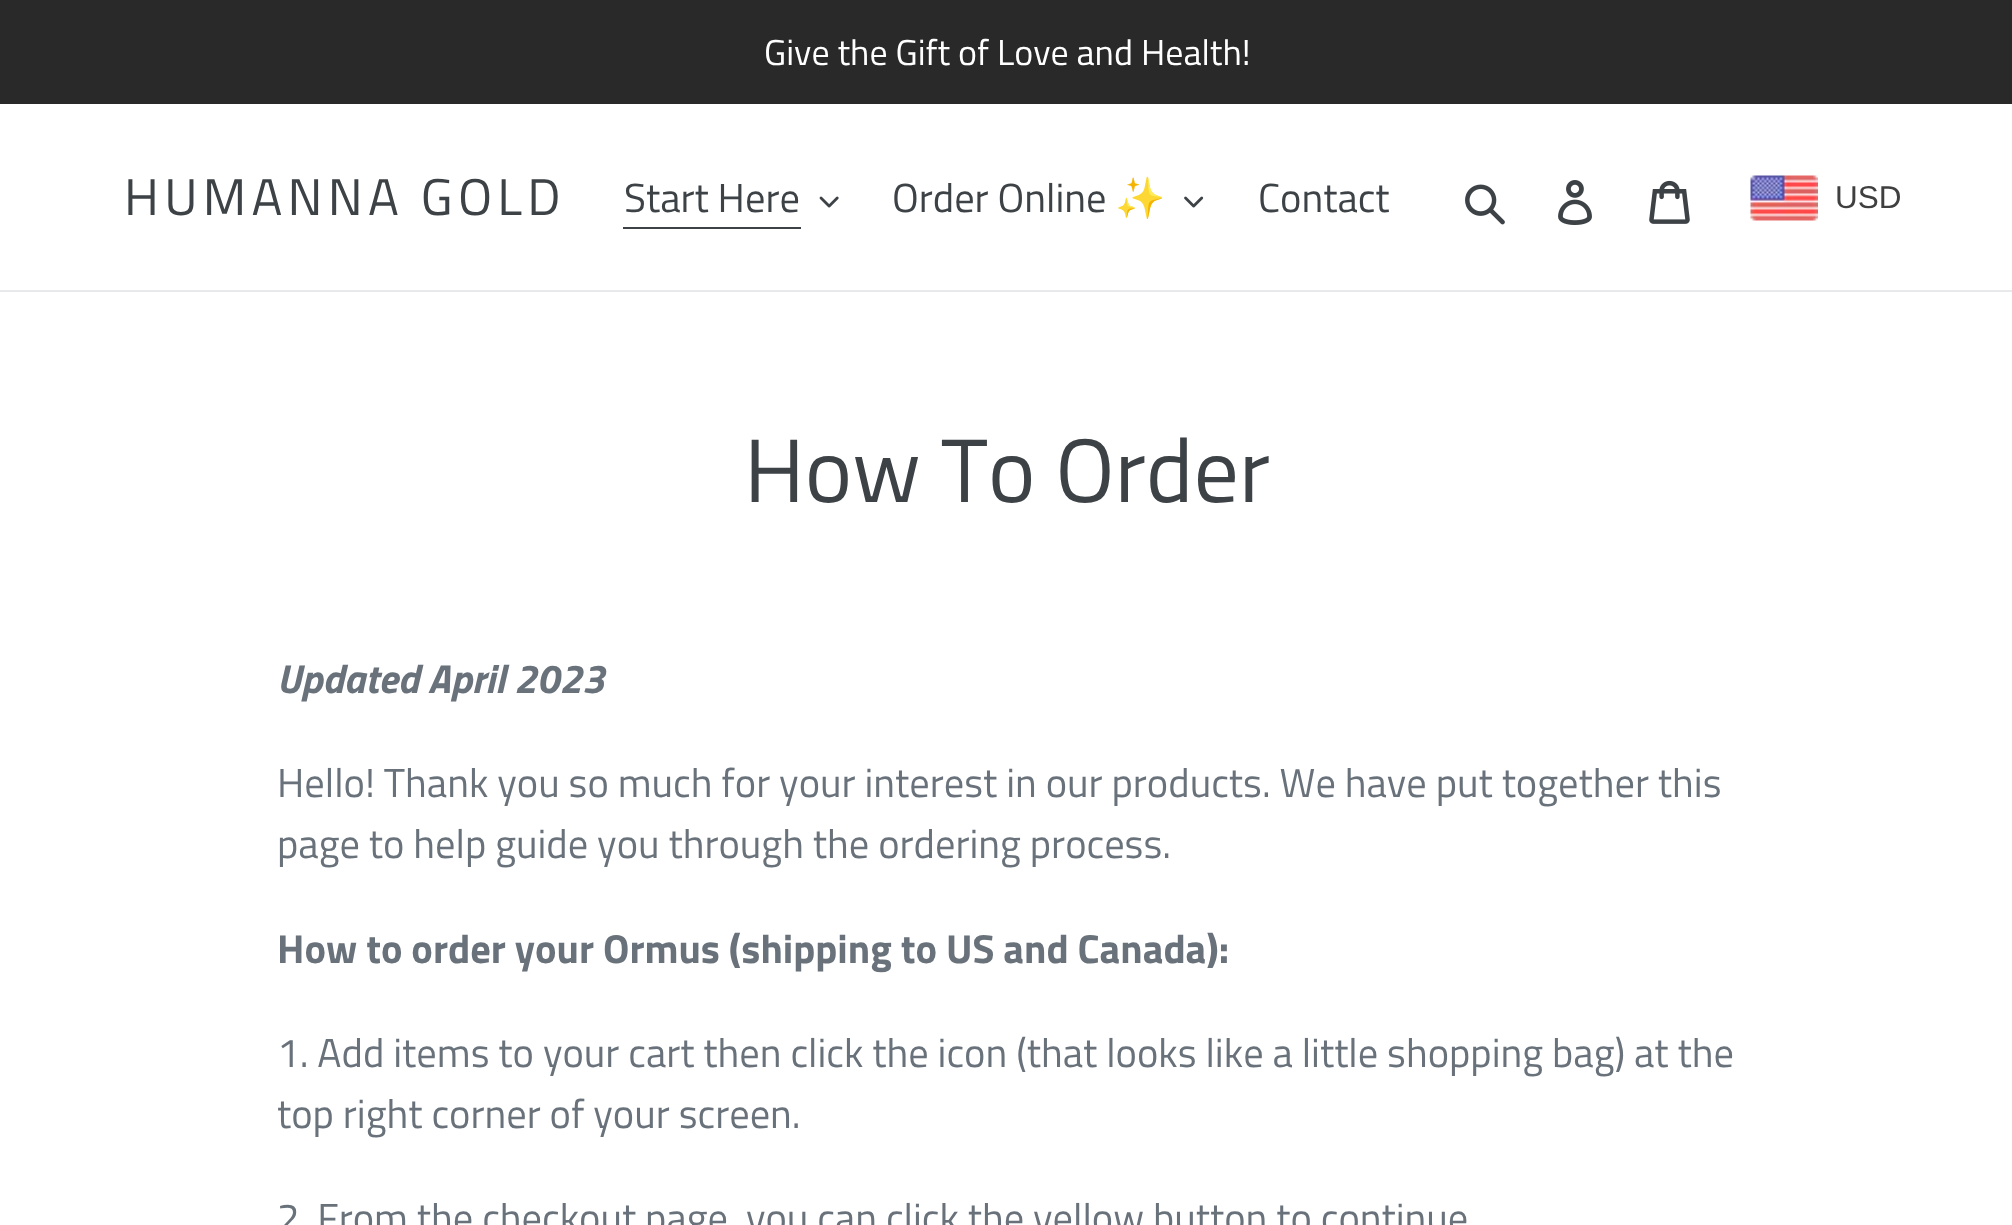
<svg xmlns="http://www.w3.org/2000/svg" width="2012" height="1225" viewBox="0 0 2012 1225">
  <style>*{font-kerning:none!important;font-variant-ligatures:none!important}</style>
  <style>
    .t1 { font: 36px Titillium Web; fill: #fff; }
    .t2 { font: 51.75px Titillium Web; letter-spacing: 5.25px; fill: #3d4246; }
    .t3 { font: 40.5px Titillium Web; fill: #3d4246; }
    .t4 { font: 40.5px Noto Color Emoji; fill: #3d4246; }
    .t5 { font: 31.5px Liberation Sans; fill: #403f3f; }
    .t6 { font: 90px Titillium Web; fill: #3d4246; }
    .t7 { font: italic bold 40.5px Titillium Web; fill: #69727b; }
    .t8 { font: 40.5px Titillium Web; fill: #69727b; }
    .t9 { font: bold 40.5px Titillium Web; fill: #69727b; }
  </style>
  <rect width="100%" height="100%" fill="#fff"/>
  <rect x="0" y="0" width="2012" height="104" fill="#292929"/>
  <text x="764" y="65" class="t1">Give the Gift of Love and Health!</text>
  <rect x="0" y="290" width="2012" height="2" fill="#e8e9eb"/>
  <text x="124" y="215" class="t2">HUMANNA GOLD</text>
  <text x="624" y="212" class="t3">Start Here</text>
  <rect x="623" y="227" width="178" height="2" fill="#3d4246"/>
  <image x="819" y="196" width="20" height="12" href="images/1.png"/>
  <text x="892" y="212" class="t3">Order Online</text>
  <text x="1115" y="212" class="t4">✨</text>
  <image x="1184" y="196" width="20" height="12" href="images/2.png"/>
  <text x="1258" y="212" class="t3">Contact</text>
  <image x="1465" y="184" width="40" height="41" href="images/3.png"/>
  <image x="1558" y="180" width="34" height="45" href="images/4.png"/>
  <image x="1649" y="180" width="41" height="44" href="images/5.png"/>
  <image x="1750" y="175" width="68" height="46" href="images/6.png"/>
  <text x="1835" y="208" class="t5">USD</text>
  <text x="744" y="502" class="t6">How To Order</text>
  <text x="277" y="693" class="t7">Updated April 2023</text>
  <text x="277" y="797" class="t8">Hello! Thank you so much for your interest in our products. We have put together this</text>
  <text x="277" y="858" class="t8">page to help guide you through the ordering process.</text>
  <text x="277" y="963" class="t9">How to order your Ormus (shipping to US and Canada):</text>
  <text x="277" y="1067" class="t8">1. Add items to your cart then click the icon (that looks like a little shopping bag) at the</text>
  <text x="277" y="1128" class="t8">top right corner of your screen.</text>
  <text x="277" y="1232" class="t8">2. From the checkout page, you can click the yellow button to continue</text>
</svg>
